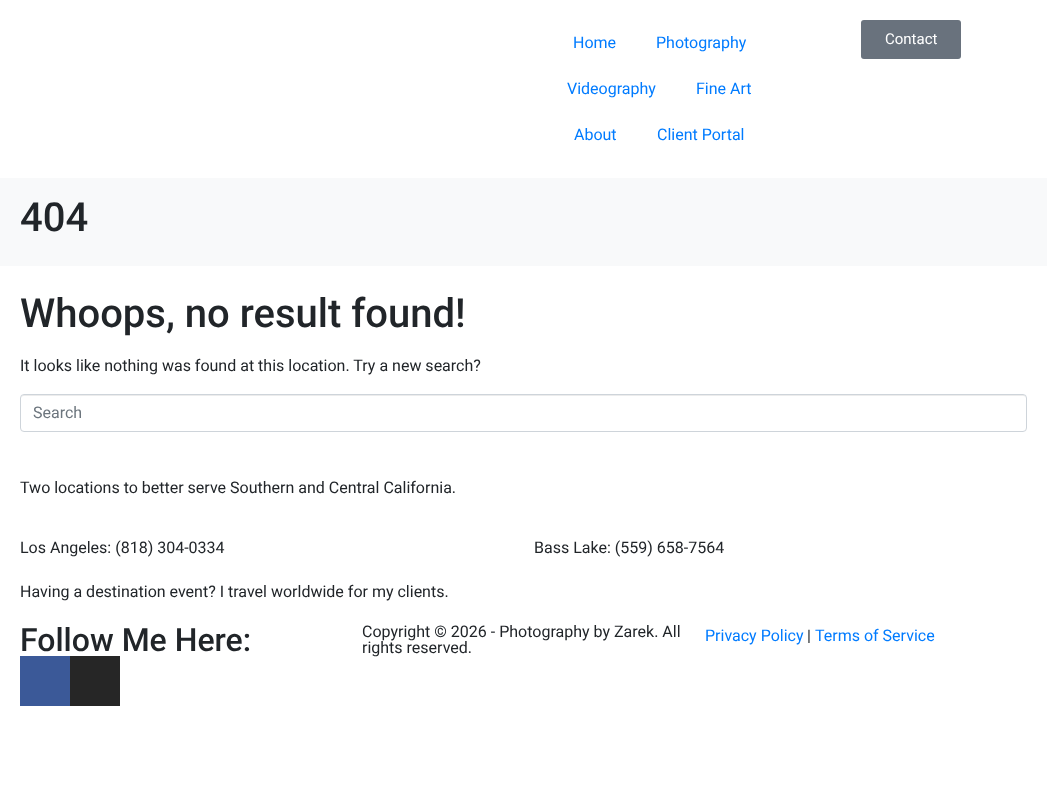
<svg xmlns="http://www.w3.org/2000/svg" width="1047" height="799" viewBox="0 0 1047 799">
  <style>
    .t1 { font: 16px Roboto; fill: #007bff; }
    .t2 { font: 15px Roboto; fill: #fff; }
    .t3 { font: 500 40px Roboto; fill: #212529; }
    .t4 { font: 16px Roboto; fill: #212529; }
    .t5 { font: 16px Roboto; fill: #6c757d; }
    .t6 { font: 500 32px Roboto; fill: #212529; }
  </style>
  <rect width="100%" height="100%" fill="#fff"/>
  <text x="573" y="48" class="t1">Home</text>
  <text x="656" y="48" class="t1">Photography</text>
  <text x="567" y="94" class="t1">Videography</text>
  <text x="696" y="94" class="t1">Fine Art</text>
  <text x="574" y="140" class="t1">About</text>
  <text x="657" y="140" class="t1">Client Portal</text>
  <rect x="861" y="20" width="100" height="39" rx="3" fill="#69727d"/>
  <text x="885" y="44" class="t2">Contact</text>
  <rect x="0" y="178" width="1047" height="88" fill="#f8f9fa"/>
  <text x="20" y="231" class="t3">404</text>
  <text x="20" y="327" class="t3">Whoops, no result found!</text>
  <text x="20" y="371" class="t4">It looks like nothing was found at this location. Try a new search?</text>
  <path d="M24 396H1023C1025 396 1026 397 1026 399C1026 397 1025 395 1023 395H24C22 395 21 397 21 399C21 397 22 396 24 396Z" fill="#ececec"/>
  <rect x="20.5" y="394.5" width="1006" height="37" rx="3.5" fill="none" stroke="#ced4da"/>
  <text x="33" y="418" class="t5">Search</text>
  <text x="20" y="493" class="t4">Two locations to better serve Southern and Central California.</text>
  <text x="20" y="553" class="t4">Los Angeles: (818) 304-0334</text>
  <text x="534" y="553" class="t4">Bass Lake: (559) 658-7564</text>
  <text x="20" y="597" class="t4">Having a destination event? I travel worldwide for my clients.</text>
  <text x="20" y="651" class="t6">Follow Me Here:</text>
  <rect x="20" y="656" width="50" height="50" fill="#3b5998"/>
  <rect x="70" y="656" width="50" height="50" fill="#262626"/>
  <text x="362" y="637" class="t4">Copyright © 2026 - Photography by Zarek. All</text>
  <text x="362" y="653" class="t4">rights reserved.</text>
  <text x="705" y="641" class="t1">Privacy Policy</text>
  <text x="807" y="641" class="t4">|</text>
  <text x="815" y="641" class="t1">Terms of Service</text>
</svg>
